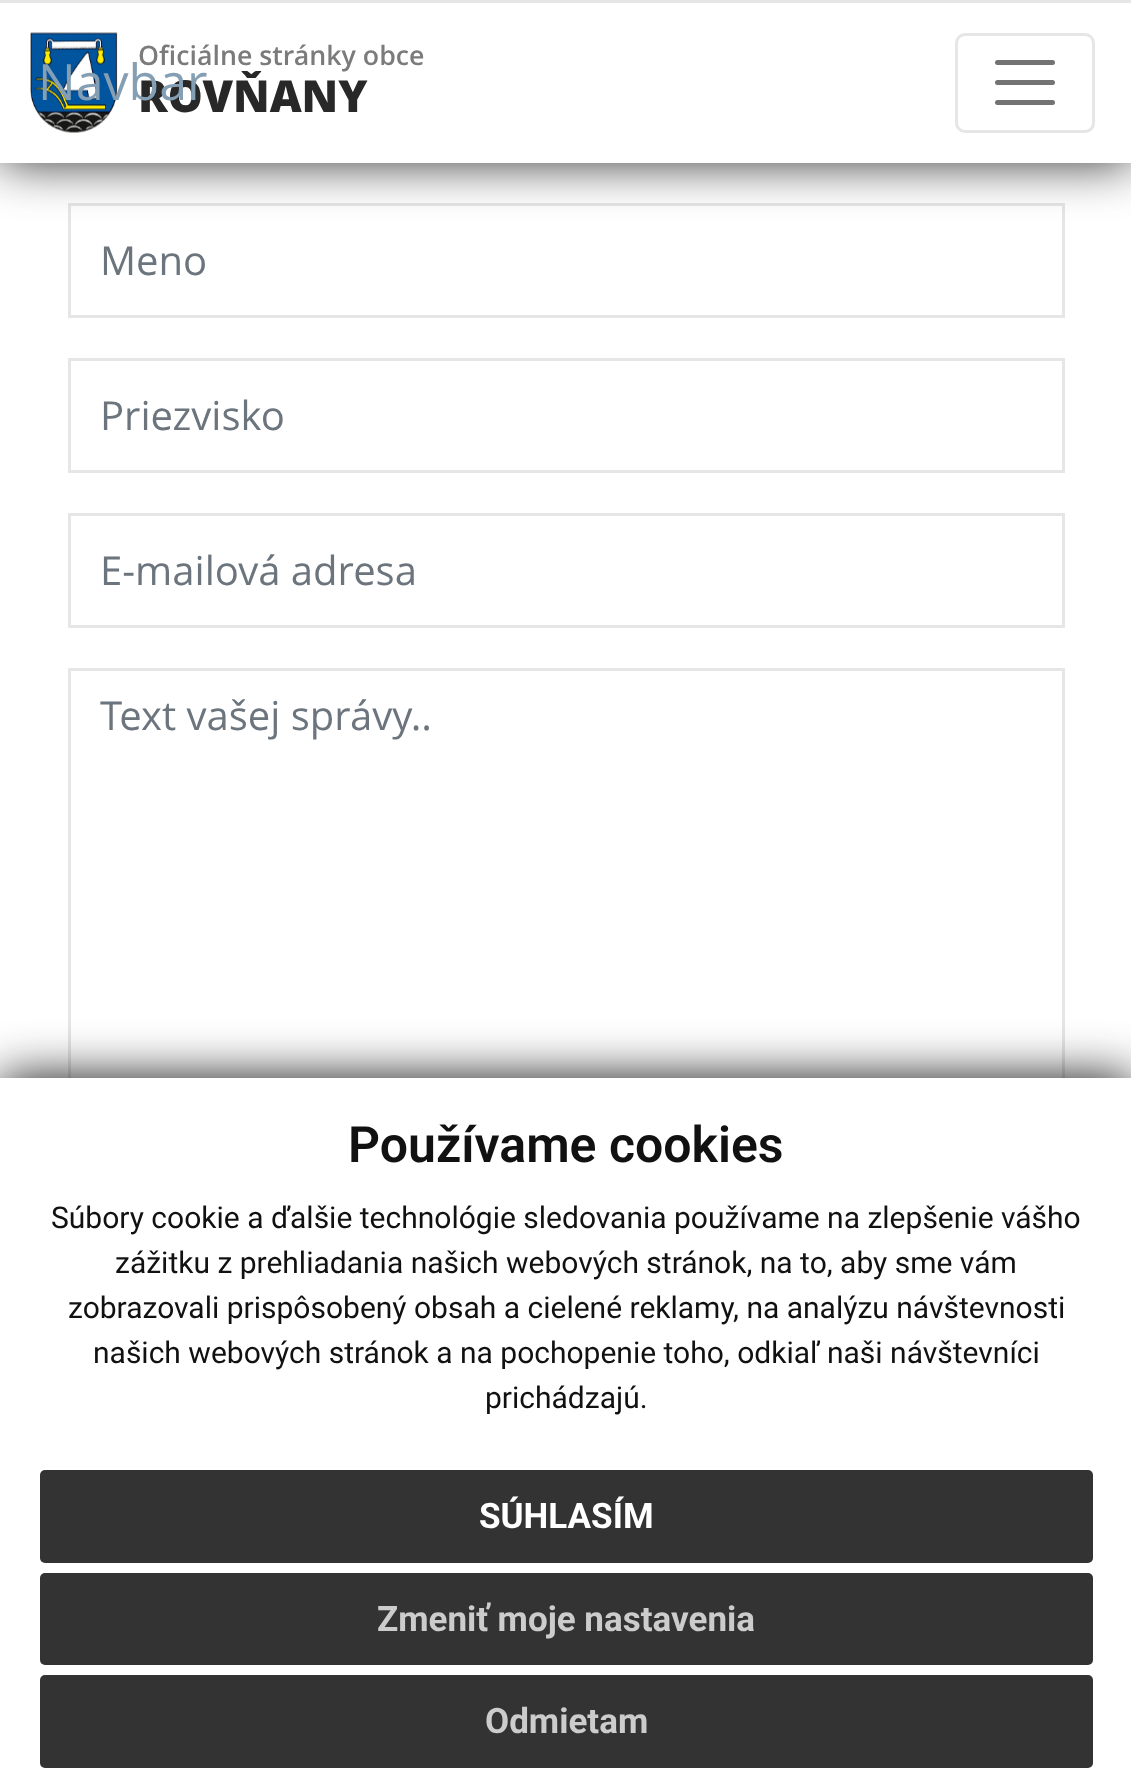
<svg xmlns="http://www.w3.org/2000/svg" width="1131" height="1788" viewBox="0 0 1131 1788">
  <style>
    .t1 { font: 800 44px Open Sans; fill: #282828; }
    .t2 { font: 50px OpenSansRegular; fill: #849eb3; }
    .t3 { font: 600 26.75px Open Sans; fill: #7b7b7b; }
    .t4 { font: 40px OpenSansRegular; fill: #6c757d; }
    .t5 { font: 600 50px Roboto; fill: #111; }
    .t6 { font: 30px Roboto; fill: #111; }
    .t7 { font: bold 35px Roboto; fill: #fff; }
    .t8 { font: bold 35px Roboto; fill: #ccc; }
  </style>
  <rect width="100%" height="100%" fill="#fff"/>
  <rect x="69.5" y="204.5" width="994" height="112" fill="none" stroke="#e6e6e6" stroke-width="3"/>
  <rect x="0" y="0" width="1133" height="163" fill="#333" filter="blur(25px)"/>
  <rect x="0" y="3" width="1131" height="160" fill="#fff"/>
  <rect x="0" y="0" width="1131" height="3" fill="#e6e6e6"/>
  <image x="30" y="32" width="88" height="101" href="images/1.png"/>
  <text x="138" y="112" class="t1">ROVŇANY</text>
  <text x="38" y="100" class="t2">Navbar</text>
  <rect x="956.5" y="34.5" width="137" height="97" rx="8.5" fill="none" stroke="#e6e6e6" stroke-width="3"/>
  <path d="M997.5 62.5H1052.5M997.5 82.5H1052.5M997.5 102.5H1052.5" fill="none" stroke="#737373" stroke-width="5" stroke-linecap="round"/>
  <text x="138" y="65" class="t3">Oficiálne stránky obce</text>
  <text x="100" y="275" class="t4">Meno</text>
  <rect x="69.5" y="359.5" width="994" height="112" fill="none" stroke="#e6e6e6" stroke-width="3"/>
  <text x="100" y="430" class="t4">Priezvisko</text>
  <rect x="69.5" y="514.5" width="994" height="112" fill="none" stroke="#e6e6e6" stroke-width="3"/>
  <text x="100" y="585" class="t4">E-mailová adresa</text>
  <rect x="69.5" y="669.5" width="994" height="452" fill="none" stroke="#e6e6e6" stroke-width="3"/>
  <text x="100" y="730" class="t4">Text vašej správy..</text>
  <rect x="0" y="1078" width="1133" height="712" fill="#111" filter="blur(25px)"/>
  <rect x="0" y="1078" width="1131" height="710" fill="#fff"/>
  <text x="348" y="1162" class="t5">Používame cookies</text>
  <text x="51" y="1228" class="t6">Súbory cookie a ďalšie technológie sledovania používame na zlepšenie vášho</text>
  <text x="115" y="1273" class="t6">zážitku z prehliadania našich webových stránok, na to, aby sme vám</text>
  <text x="68" y="1318" class="t6">zobrazovali prispôsobený obsah a cielené reklamy, na analýzu návštevnosti</text>
  <text x="93" y="1363" class="t6">našich webových stránok a na pochopenie toho, odkiaľ naši návštevníci</text>
  <text x="485" y="1408" class="t6">prichádzajú.</text>
  <rect x="40" y="1470" width="1053" height="93" rx="5" fill="#333"/>
  <text x="479" y="1528" class="t7">SÚHLASÍM</text>
  <rect x="40" y="1573" width="1053" height="92" rx="5" fill="#333"/>
  <text x="377" y="1631" class="t8">Zmeniť moje nastavenia</text>
  <rect x="40" y="1675" width="1053" height="93" rx="5" fill="#333"/>
  <text x="485" y="1733" class="t8">Odmietam</text>
</svg>
